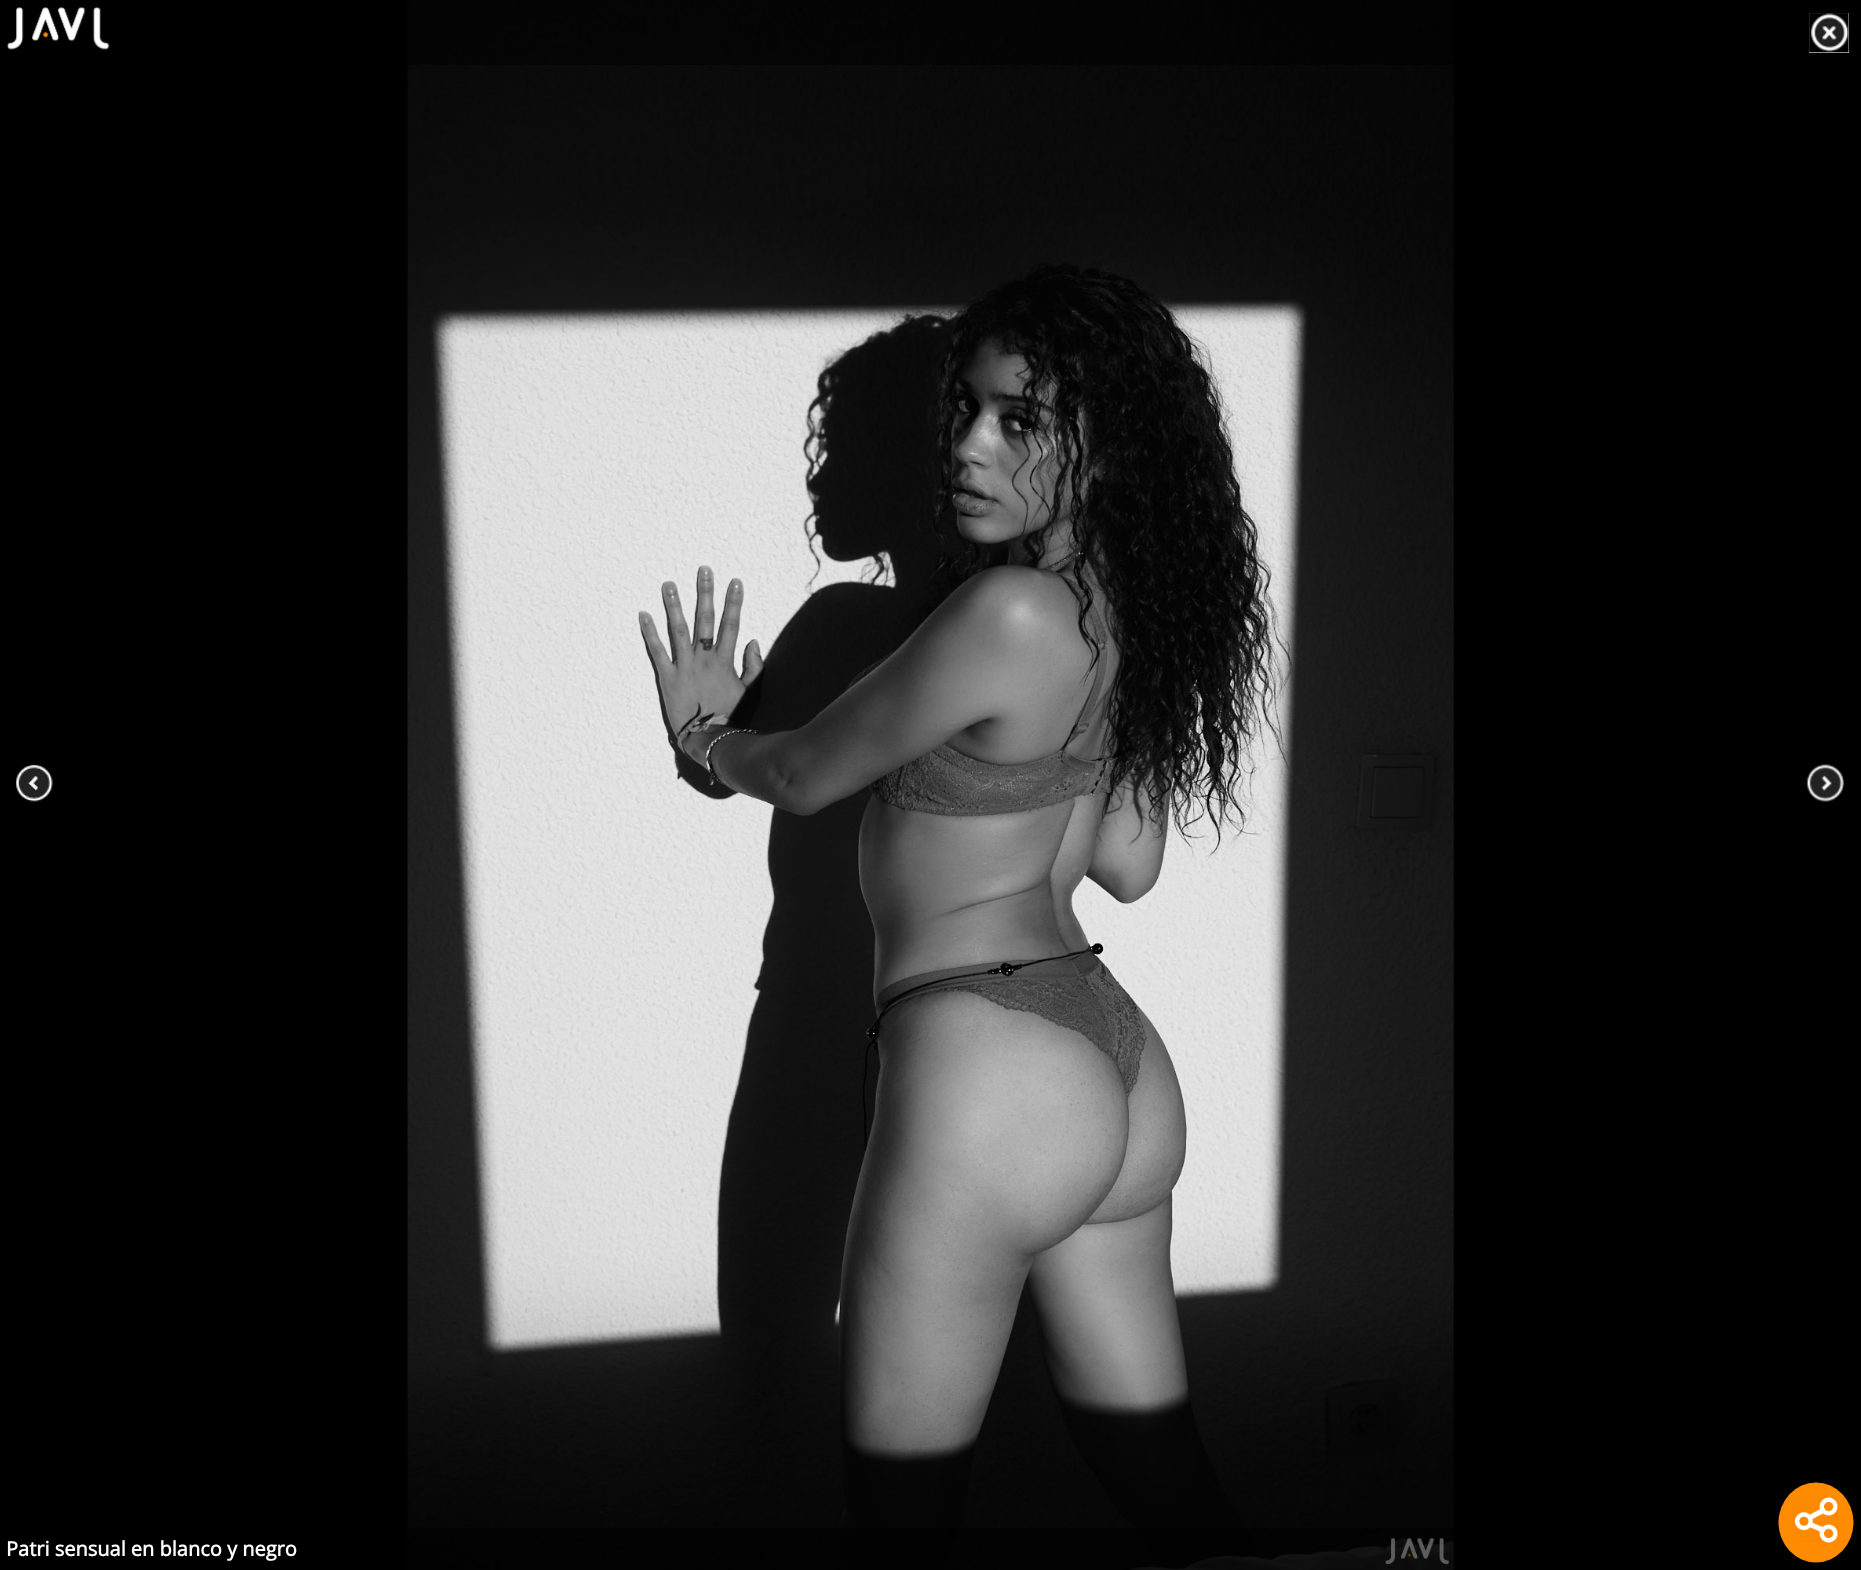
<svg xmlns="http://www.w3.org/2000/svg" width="1861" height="1570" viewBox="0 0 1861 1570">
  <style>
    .t1 { font: bold 20px Open Sans; fill: #fff; }
  </style>
  <rect width="100%" height="100%" fill="#000"/>
  <image x="407" y="0" width="1047" height="1570" href="images/3.png"/>
  <rect x="408" y="0" width="1046" height="65" fill="#00000080"/>
  <image x="7" y="7" width="103" height="43" href="images/1.png"/>
  <rect x="1809" y="13" width="40" height="40" fill="#fff"/>
  <image x="1809" y="13" width="40" height="40" href="images/2.png"/>
  <image x="16" y="764" width="37" height="38" href="images/4.png"/>
  <image x="1806" y="764" width="39" height="38" href="images/5.png"/>
  <rect x="408" y="1528" width="1046" height="42" fill="#00000080"/>
  <text x="6" y="1556" class="t1">Patri sensual en blanco y negro</text>
  <ellipse cx="1816" cy="1522.5" rx="37.5" ry="40" fill="#ff8b00"/>
  <image x="1792" y="1497" width="47" height="46" href="images/6.png"/>
</svg>
